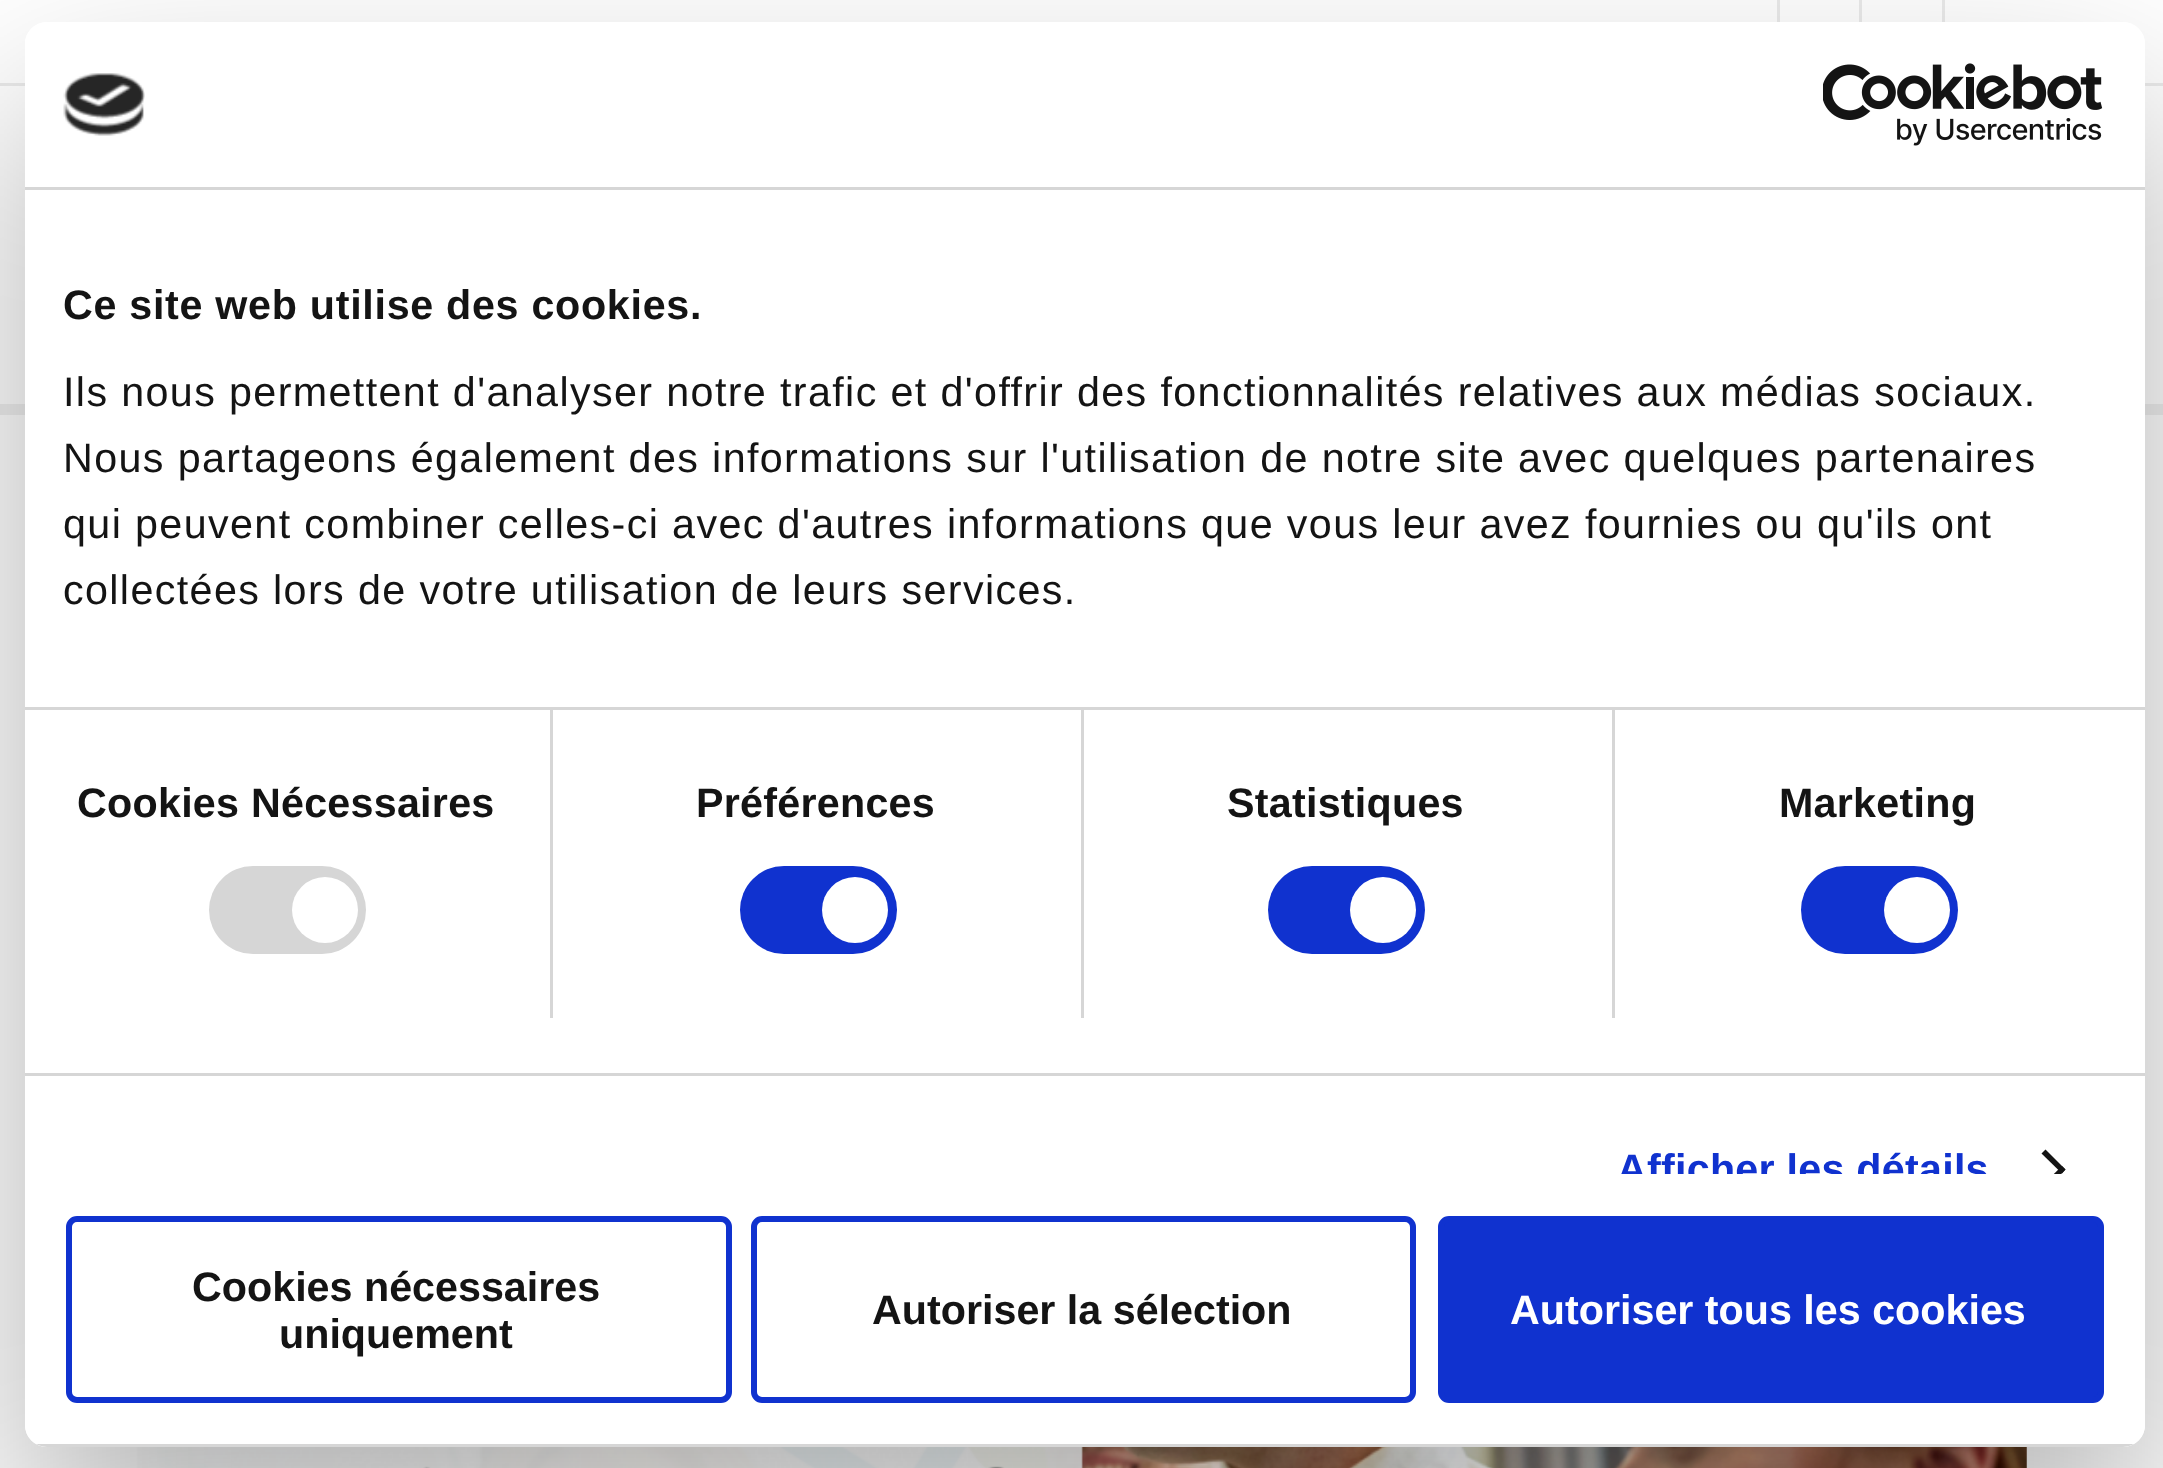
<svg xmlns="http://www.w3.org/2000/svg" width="2163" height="1468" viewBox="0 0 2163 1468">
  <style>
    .t1 { font: bold 41.25px Liberation Sans; letter-spacing: 0.7px; fill: #141414; }
    .t2 { font: 41.25px Liberation Sans; letter-spacing: 1.38px; fill: #141414; }
    .t3 { font: bold 41.25px Liberation Sans; letter-spacing: 0.25px; fill: #141414; }
    .t4 { font: bold 41.25px Liberation Sans; letter-spacing: 0.25px; fill: #1032cf; }
    .t5 { font: bold 41.25px Liberation Sans; fill: #141414; }
    .t6 { font: bold 41.25px Liberation Sans; fill: #fff; }
  </style>
  <defs>
    <clipPath id="clip1"><path d="M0 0H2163V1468H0ZM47 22H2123C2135 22 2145 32 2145 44V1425C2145 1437 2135 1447 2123 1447H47C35 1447 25 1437 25 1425V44C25 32 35 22 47 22Z" clip-rule="evenodd"/></clipPath>
    <clipPath id="clip2"><rect x="25" y="190" width="2120" height="984"/></clipPath>
    <clipPath id="clip3"><rect x="25" y="22" width="2120" height="1425" rx="22"/></clipPath>
  </defs>
  <rect width="100%" height="100%" fill="#fff"/>
  <rect x="0" y="83" width="2163" height="3" fill="#ebebeb"/>
  <rect x="1777" y="0" width="3" height="22" fill="#ebebeb"/>
  <rect x="1859" y="0" width="3" height="22" fill="#ebebeb"/>
  <rect x="1942" y="0" width="3" height="22" fill="#ebebeb"/>
  <rect x="0" y="404" width="2163" height="11" fill="#f0f0f0"/>
  <image x="137" y="1447" width="1890" height="21" href="images/1.png"/>
  <g clip-path="url(#clip1)">
    <rect x="25" y="110" width="2120" height="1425" rx="22" fill="#0000004d" filter="blur(93.5px)"/>
  </g>
  <rect x="25" y="22" width="2120" height="1425" rx="22" fill="#fff"/>
  <rect x="25" y="187" width="2120" height="3" fill="#d6d6d6"/>
  <image x="63" y="73" width="82" height="63" href="images/2.png"/>
  <image x="1823" y="63" width="280" height="83" href="images/3.png"/>
  <rect x="25" y="707" width="2120" height="3" fill="#d6d6d6"/>
  <text x="63" y="319" class="t1">Ce site web utilise des cookies.</text>
  <text x="63" y="406" class="t2">Ils nous permettent d'analyser notre trafic et d'offrir des fonctionnalités relatives aux médias sociaux.</text>
  <text x="63" y="472" class="t2">Nous partageons également des informations sur l'utilisation de notre site avec quelques partenaires</text>
  <text x="63" y="538" class="t2">qui peuvent combiner celles-ci avec d'autres informations que vous leur avez fournies ou qu'ils ont</text>
  <text x="63" y="604" class="t2">collectées lors de votre utilisation de leurs services.</text>
  <rect x="25" y="1073" width="2120" height="3" fill="#d6d6d6"/>
  <rect x="550" y="710" width="3" height="308" fill="#d6d6d6"/>
  <text x="77" y="817" class="t3">Cookies Nécessaires</text>
  <rect x="209" y="866" width="157" height="88" rx="44" fill="#d6d6d6"/>
  <circle cx="325" cy="910" r="33" fill="#fff"/>
  <rect x="1081" y="710" width="3" height="308" fill="#d6d6d6"/>
  <text x="696" y="817" class="t3">Préférences</text>
  <rect x="740" y="866" width="157" height="88" rx="44" fill="#1032cf"/>
  <circle cx="855" cy="910" r="33" fill="#fff"/>
  <rect x="1612" y="710" width="3" height="308" fill="#d6d6d6"/>
  <text x="1227" y="817" class="t3">Statistiques</text>
  <rect x="1268" y="866" width="157" height="88" rx="44" fill="#1032cf"/>
  <circle cx="1383" cy="910" r="33" fill="#fff"/>
  <text x="1779" y="817" class="t3">Marketing</text>
  <rect x="1801" y="866" width="157" height="88" rx="44" fill="#1032cf"/>
  <circle cx="1917" cy="910" r="33" fill="#fff"/>
  <g clip-path="url(#clip2)">
    <text x="1617" y="1183" class="t4">Afficher les détails</text>
  </g>
  <path d="M2045.5 1149.5L2065.5 1169.5L2062 1173.5L2041.5 1153.5Z" fill="#141414"/>
  <g clip-path="url(#clip2)">
    <path d="M2062 1166L2065.5 1169.5L2045.5 1190L2041.5 1186Z" fill="#141414"/>
  </g>
  <g clip-path="url(#clip3)">
    <rect x="36" y="1444" width="2098" height="3" fill="#d6d6d6"/>
  </g>
  <rect x="69" y="1219" width="660" height="181" rx="8" fill="none" stroke="#1032cf" stroke-width="6"/>
  <text x="192" y="1301" class="t5">Cookies nécessaires</text>
  <text x="279" y="1348" class="t5">uniquement</text>
  <rect x="754" y="1219" width="659" height="181" rx="8" fill="none" stroke="#1032cf" stroke-width="6"/>
  <text x="872" y="1324" class="t5">Autoriser la sélection</text>
  <rect x="1441" y="1219" width="660" height="181" rx="8" fill="#1032cf" stroke="#1032cf" stroke-width="6"/>
  <text x="1510" y="1324" class="t6">Autoriser tous les cookies</text>
</svg>
